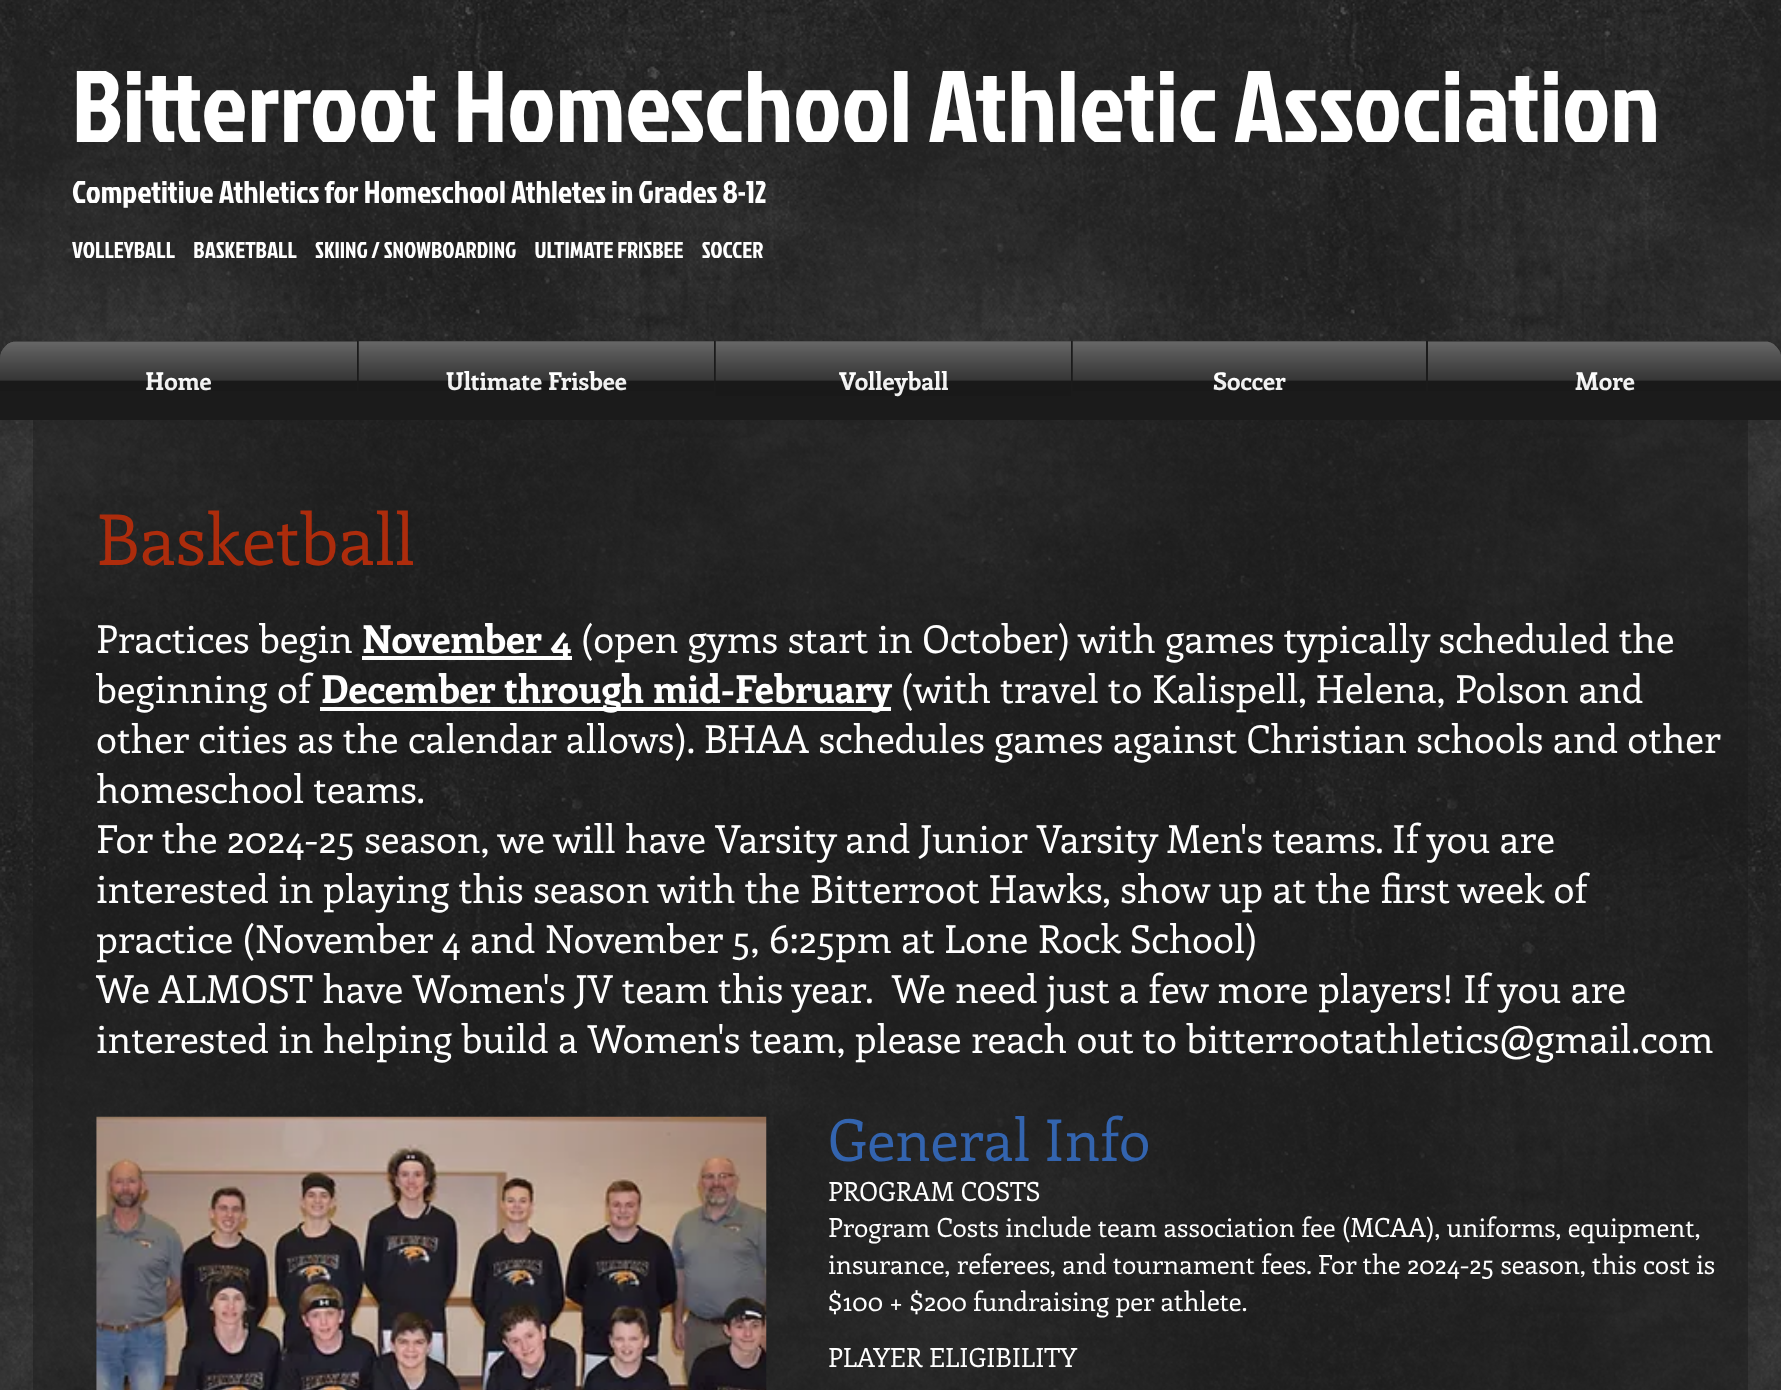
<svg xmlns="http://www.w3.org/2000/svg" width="1781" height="1390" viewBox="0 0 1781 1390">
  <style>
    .t1 { font: 101.5px Jockey One; fill: #fff; }
    .t2 { font: 31.5px Jockey One; fill: #fff; }
    .t3 { font: 22.75px Jockey One; fill: #fff; }
    .t4 { font: bold 24.5px Enriqueta; fill: #fff; }
    .t5 { font: 70px Enriqueta; fill: #ad2c0c; }
    .t6 { font: 38.5px Enriqueta; fill: #fff; }
    .t7 { font: bold 38.5px Enriqueta; fill: #fff; }
    .t8 { font: 57.75px Enriqueta; fill: #3364af; }
    .t9 { font: 26.25px Enriqueta; fill: #fff; }
  </style>
  <rect width="100%" height="100%" fill="#1b1b1b"/>
  <image x="0" y="0" width="1781" height="1390" href="images/1.png"/>
  <text x="72" y="142" class="t1">Bitterroot Homeschool Athletic Association</text>
  <text x="72" y="203" class="t2">Competitive Athletics for Homeschool Athletes in Grades 8-12</text>
  <text x="72" y="258" class="t3" xml:space="preserve">VOLLEYBALL     BASKETBALL     SKIING / SNOWBOARDING     ULTIMATE FRISBEE     SOCCER</text>
  <image x="0" y="341" width="1781" height="18" href="images/2.png"/>
  <path d="M18 341H357V420H0V359C0 349 8 341 18 341Z" fill="#1b1b1b"/>
  <text x="145" y="390" class="t4">Home</text>
  <image x="0" y="341" width="357" height="50" href="images/3.png"/>
  <rect x="357" y="341" width="1069" height="79" fill="#1b1b1b"/>
  <text x="446" y="390" class="t4">Ultimate Frisbee</text>
  <image x="358" y="341" width="356" height="50" href="images/4.png"/>
  <text x="839" y="390" class="t4">Volleyball</text>
  <image x="715" y="341" width="356" height="55" href="images/5.png"/>
  <text x="1213" y="390" class="t4">Soccer</text>
  <image x="1072" y="341" width="354" height="50" href="images/6.png"/>
  <path d="M1426 341H1764C1774 341 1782 349 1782 359V420H1426Z" fill="#1b1b1b"/>
  <text x="1575" y="390" class="t4">More</text>
  <image x="1428" y="341" width="353" height="50" href="images/7.png"/>
  <rect x="33" y="420" width="1715" height="970" fill="#1b1b1b80"/>
  <text x="96" y="565" class="t5">Basketball</text>
  <text x="96" y="653" class="t6">Practices begin</text>
  <rect x="362" y="656" width="210" height="4" fill="#fff"/>
  <text x="362" y="653" class="t7">November 4</text>
  <text x="581" y="653" class="t6">(open gyms start in October) with games typically scheduled the</text>
  <text x="96" y="703" class="t6">beginning of</text>
  <rect x="320" y="707" width="571" height="4" fill="#fff"/>
  <text x="321" y="703" class="t7">December through mid-February</text>
  <text x="901" y="703" class="t6">(with travel to Kalispell, Helena, Polson and</text>
  <text x="96" y="753" class="t6">other cities as the calendar allows). BHAA schedules games against Christian schools and other</text>
  <text x="96" y="803" class="t6">homeschool teams.</text>
  <text x="96" y="853" class="t6">For the 2024-25 season, we will have Varsity and Junior Varsity Men's teams. If you are</text>
  <text x="96" y="903" class="t6">interested in playing this season with the Bitterroot Hawks, show up at the first week of</text>
  <text x="96" y="953" class="t6">practice (November 4 and November 5, 6:25pm at Lone Rock School)</text>
  <text x="96" y="1003" class="t6" xml:space="preserve">We ALMOST have Women's JV team this year.  We need just a few more players! If you are</text>
  <text x="96" y="1053" class="t6">interested in helping build a Women's team, please reach out to bitterrootathletics@gmail.com</text>
  <image x="96" y="1116" width="671" height="274" href="images/8.png"/>
  <text x="828" y="1161" class="t8">General Info</text>
  <text x="828" y="1201" class="t9">PROGRAM COSTS</text>
  <text x="828" y="1237" class="t9">Program Costs include team association fee (MCAA), uniforms, equipment,</text>
  <text x="828" y="1274" class="t9">insurance, referees, and tournament fees. For the 2024-25 season, this cost is</text>
  <text x="828" y="1311" class="t9">$100 + $200 fundraising per athlete.</text>
  <text x="828" y="1367" class="t9">PLAYER ELIGIBILITY</text>
</svg>
